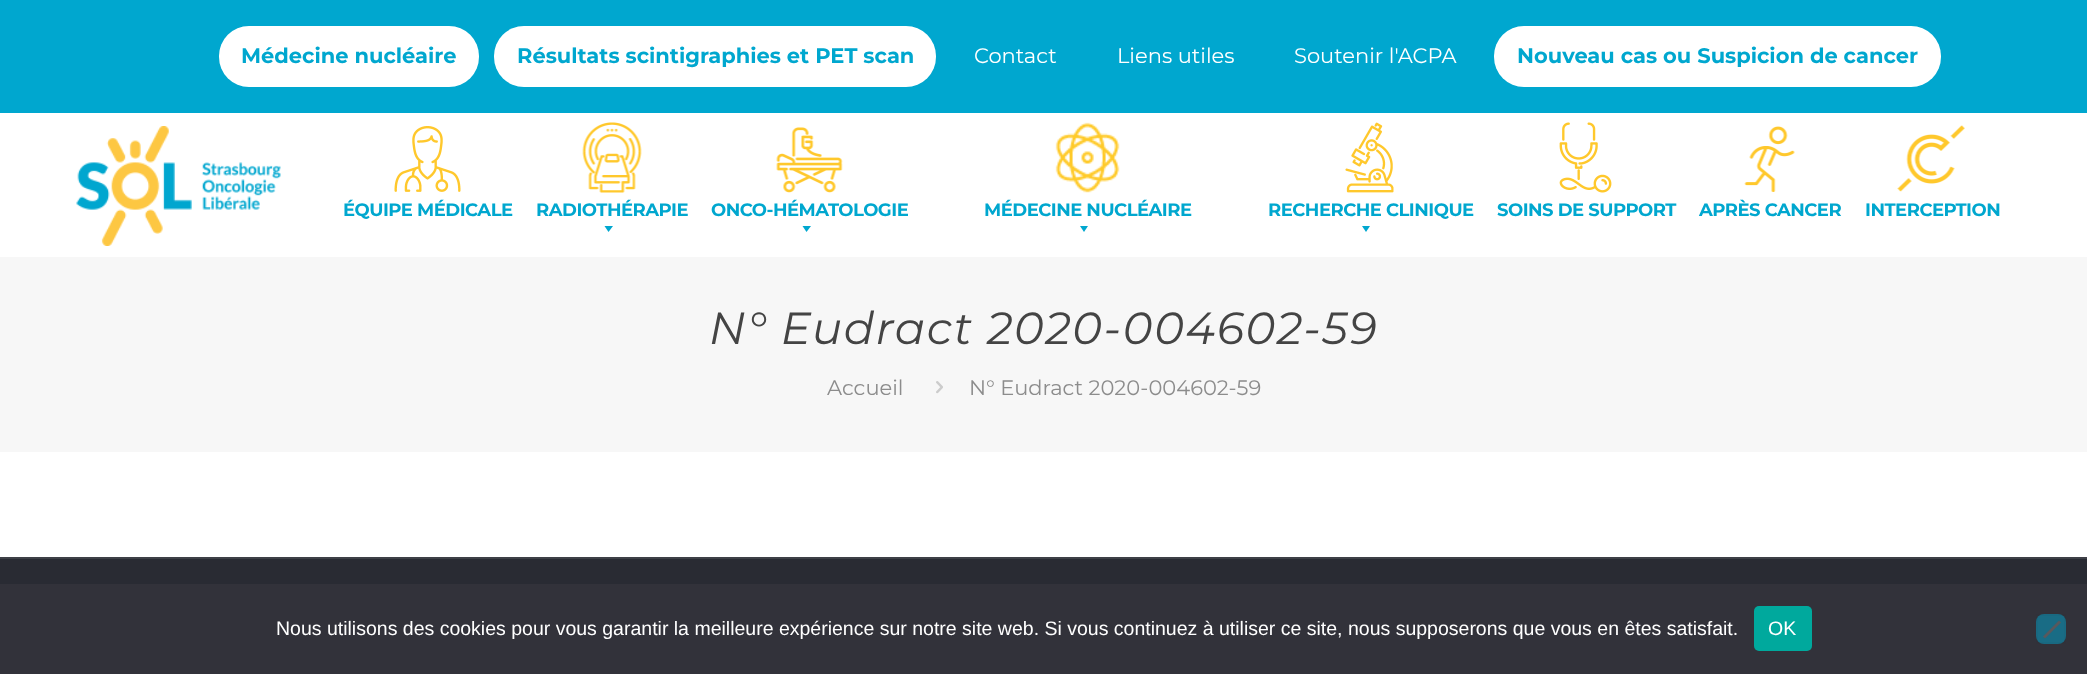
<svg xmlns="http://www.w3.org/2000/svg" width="2087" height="674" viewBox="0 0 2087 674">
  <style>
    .t1 { font: bold 21px Montserrat; fill: #00a7cf; }
    .t2 { font: 21px Montserrat; fill: #fff; }
    .t3 { font: bold 18px Montserrat; letter-spacing: -0.5px; fill: #00a7cf; }
    .t4 { font: italic 45px Montserrat; letter-spacing: 1.5px; fill: #444; }
    .t5 { font: 21px Montserrat; fill: #8c8c8c; }
    .t6 { font: 19.5px Liberation Sans; fill: #fff; }
  </style>
  <rect width="100%" height="100%" fill="#fff"/>
  <rect x="0" y="0" width="2087" height="113" fill="#00a7cf"/>
  <rect x="219" y="26" width="260" height="61" rx="30" fill="#fff"/>
  <text x="241" y="63" class="t1">Médecine nucléaire</text>
  <rect x="494" y="26" width="442" height="61" rx="30" fill="#fff"/>
  <text x="517" y="63" class="t1">Résultats scintigraphies et PET scan</text>
  <text x="974" y="63" class="t2">Contact</text>
  <text x="1117" y="63" class="t2">Liens utiles</text>
  <text x="1294" y="63" class="t2">Soutenir l'ACPA</text>
  <rect x="1494" y="26" width="447" height="61" rx="30" fill="#fff"/>
  <text x="1517" y="63" class="t1">Nouveau cas ou Suspicion de cancer</text>
  <image x="76" y="126" width="205" height="120" href="images/1.png"/>
  <image x="394" y="126" width="67" height="66" href="images/2.png"/>
  <text x="343" y="216" class="t3">ÉQUIPE MÉDICALE</text>
  <image x="582" y="122" width="60" height="71" href="images/3.png"/>
  <text x="536" y="216" class="t3">RADIOTHÉRAPIE</text>
  <path d="M613 226L608.5 232L604.5 226Z" fill="#00a7cf"/>
  <image x="776" y="127" width="67" height="66" href="images/4.png"/>
  <text x="711" y="216" class="t3">ONCO-HÉMATOLOGIE</text>
  <path d="M811 226L806.5 232L802.5 226Z" fill="#00a7cf"/>
  <image x="1055" y="122" width="65" height="71" href="images/5.png"/>
  <text x="984" y="216" class="t3">MÉDECINE NUCLÉAIRE</text>
  <path d="M1088 226L1084 232L1080 226Z" fill="#00a7cf"/>
  <image x="1345" y="122" width="49" height="71" href="images/6.png"/>
  <text x="1268" y="216" class="t3">RECHERCHE CLINIQUE</text>
  <path d="M1370 226L1366 232L1362 226Z" fill="#00a7cf"/>
  <image x="1559" y="122" width="53" height="71" href="images/7.png"/>
  <text x="1497" y="216" class="t3">SOINS DE SUPPORT</text>
  <image x="1744" y="126" width="51" height="66" href="images/8.png"/>
  <text x="1699" y="216" class="t3">APRÈS CANCER</text>
  <image x="1897" y="125" width="68" height="67" href="images/9.png"/>
  <text x="1865" y="216" class="t3">INTERCEPTION</text>
  <rect x="0" y="257" width="2087" height="195" fill="#f7f7f7"/>
  <text x="709" y="344" class="t4">N° Eudract 2020-004602-59</text>
  <text x="827" y="395" class="t5">Accueil</text>
  <image x="936" y="381" width="7" height="13" href="images/10.png"/>
  <text x="969" y="395" class="t5">N° Eudract 2020-004602-59</text>
  <rect x="0" y="559" width="2087" height="25" fill="#292b33"/>
  <rect x="0" y="557" width="2087" height="2" fill="#3e4047"/>
  <rect x="0" y="584" width="2087" height="90" fill="#32323a"/>
  <text x="276" y="635" class="t6">Nous utilisons des cookies pour vous garantir la meilleure expérience sur notre site web. Si vous continuez à utiliser ce site, nous supposerons que vous en êtes satisfait.</text>
  <rect x="1754" y="606" width="58" height="45" rx="5" fill="#00a99d"/>
  <text x="1768" y="635" class="t6">OK</text>
  <rect x="2036" y="614" width="30" height="30" rx="8" fill="#196c85"/>
  <rect x="2037" y="615" width="28" height="28" fill="none" stroke="#19191d08" stroke-width="2"/>
  <path d="M2059 620.5L2061 622.5L2045 638.5L2043 636.5Z" fill="#59595d"/>
</svg>
